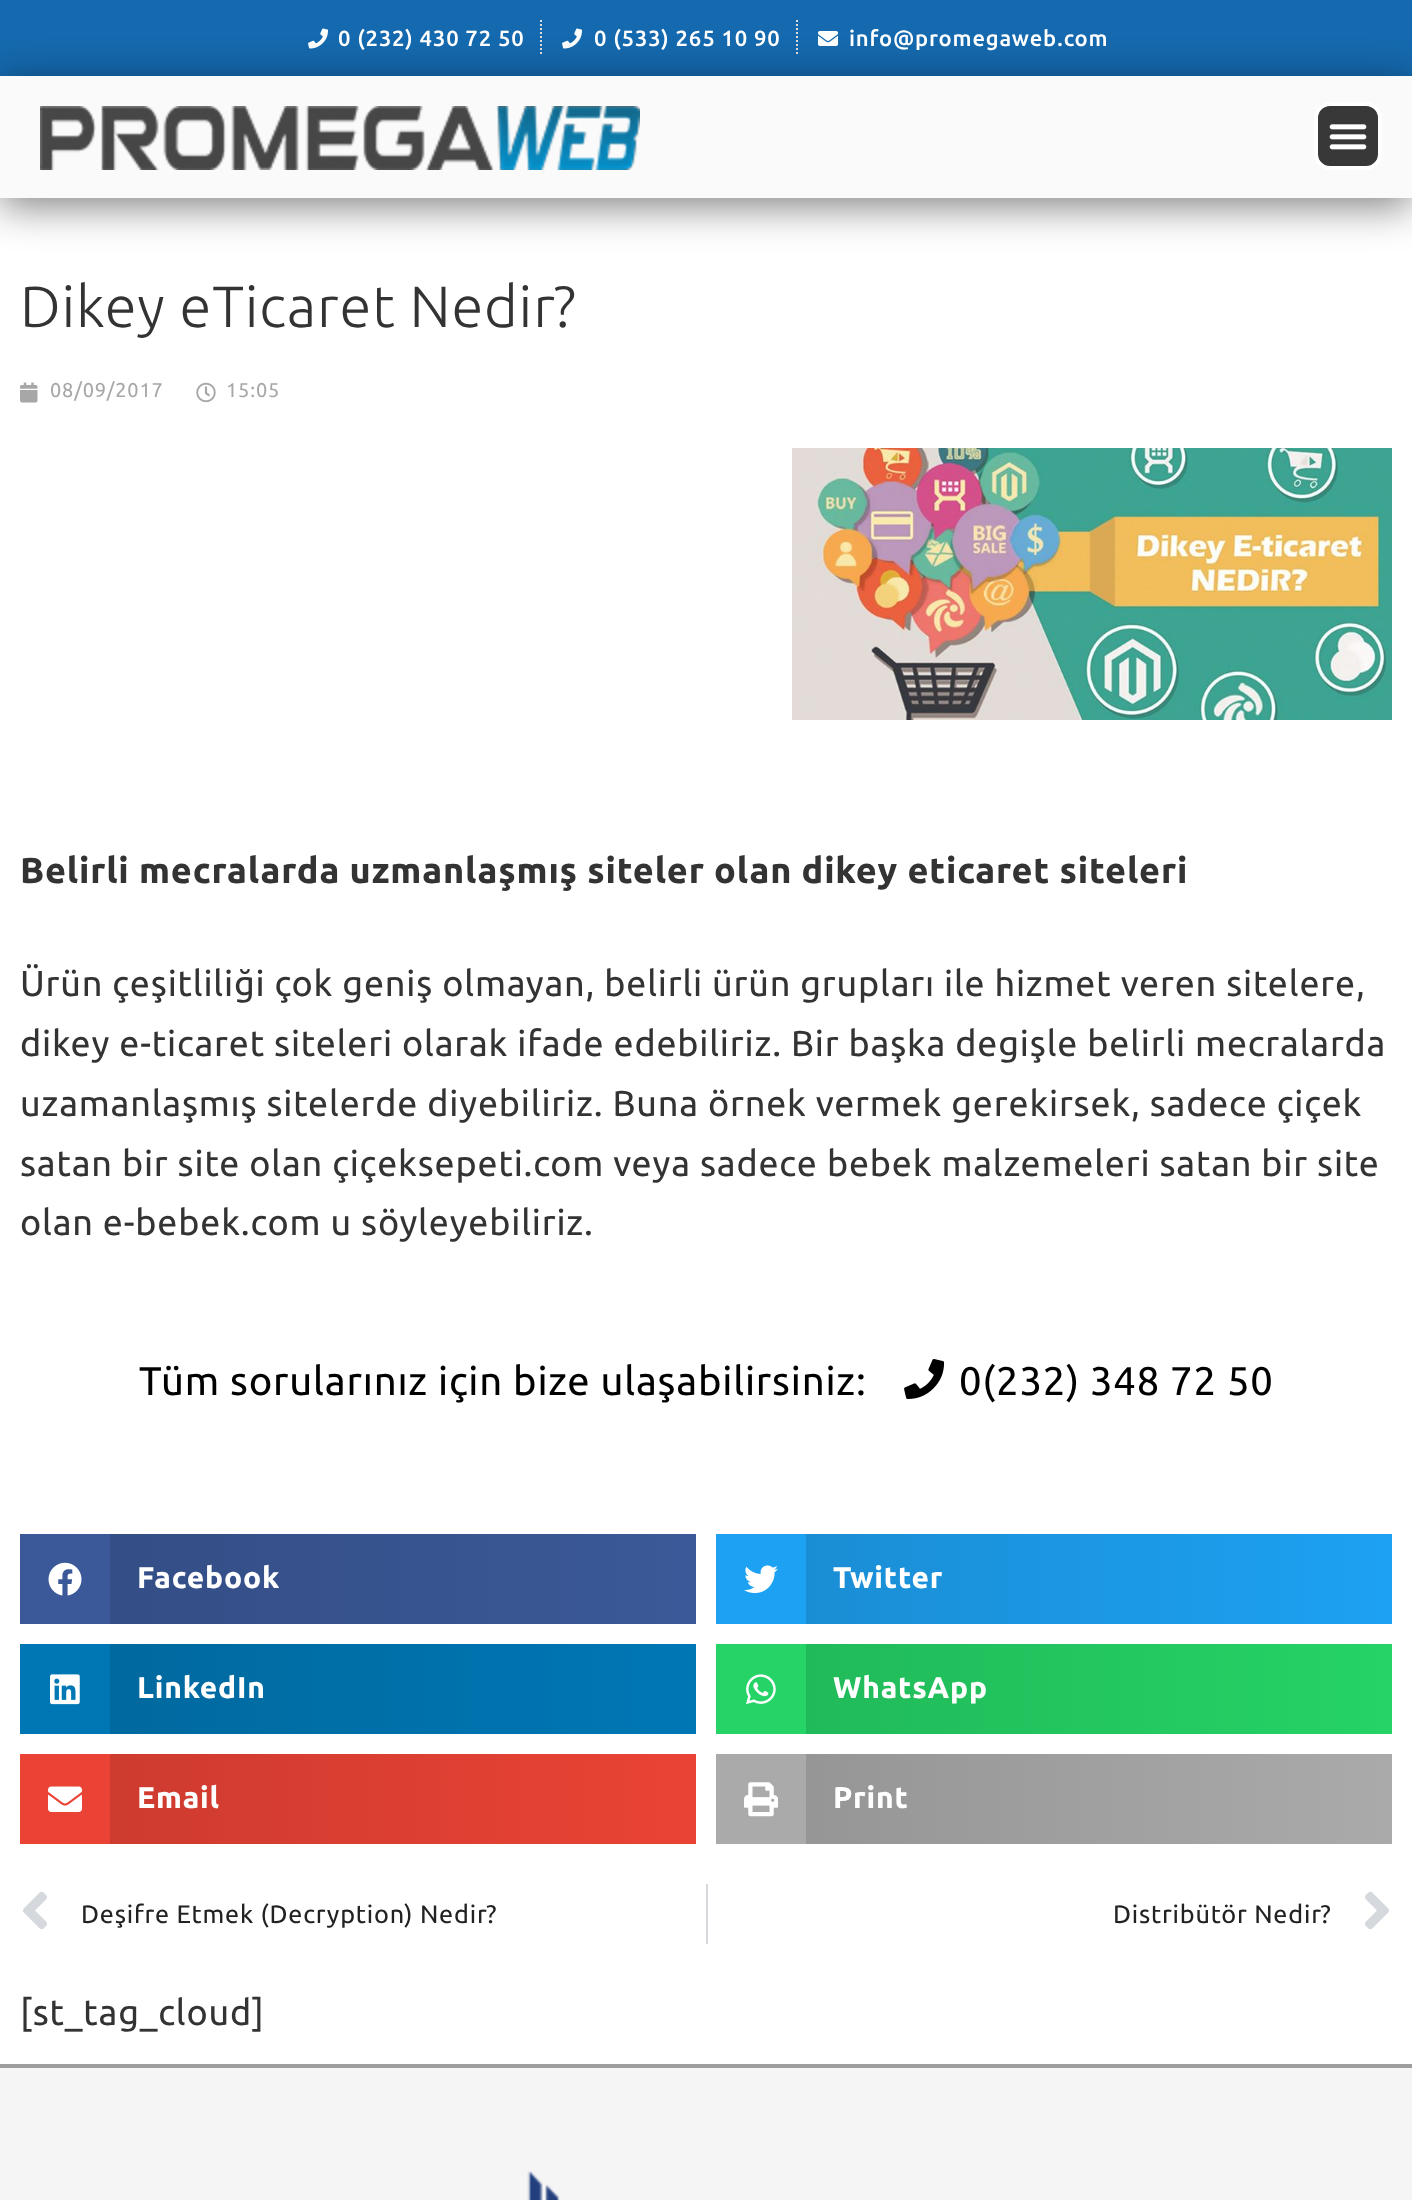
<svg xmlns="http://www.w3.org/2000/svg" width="1412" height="2200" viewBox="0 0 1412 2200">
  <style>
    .t1 { font: 500 22px Ubuntu; letter-spacing: 0.8px; fill: #fff; }
    .t2 { font: 300 58px Ubuntu; letter-spacing: 0.8px; fill: #333; }
    .t3 { font: 20px Ubuntu; letter-spacing: 0.8px; fill: #a7a7a7; }
    .t4 { font: bold 36px Ubuntu; letter-spacing: 0.8px; fill: #333; }
    .t5 { font: 36px Ubuntu; letter-spacing: 0.8px; fill: #333; }
    .t6 { font: 40px Ubuntu; letter-spacing: 0.8px; fill: #000; }
    .t7 { font: bold 30px Ubuntu; letter-spacing: 0.8px; fill: #fff; }
    .t8 { font: 25.25px Ubuntu; letter-spacing: 0.8px; fill: #222; }
  </style>
  <defs>
    <linearGradient id="g1" gradientUnits="userSpaceOnUse" x1="110" y1="1579" x2="696" y2="1579"><stop offset="0" stop-color="#344e86"/><stop offset="1" stop-color="#3b5998"/></linearGradient>
    <linearGradient id="g2" gradientUnits="userSpaceOnUse" x1="806" y1="1579" x2="1392" y2="1579"><stop offset="0" stop-color="#1a8ed5"/><stop offset="1" stop-color="#1da1f2"/></linearGradient>
    <linearGradient id="g3" gradientUnits="userSpaceOnUse" x1="110" y1="1689" x2="696" y2="1689"><stop offset="0" stop-color="#00699f"/><stop offset="1" stop-color="#0077b5"/></linearGradient>
    <linearGradient id="g4" gradientUnits="userSpaceOnUse" x1="806" y1="1689" x2="1392" y2="1689"><stop offset="0" stop-color="#21ba5a"/><stop offset="1" stop-color="#25d366"/></linearGradient>
    <linearGradient id="g5" gradientUnits="userSpaceOnUse" x1="110" y1="1799" x2="696" y2="1799"><stop offset="0" stop-color="#ce3b2f"/><stop offset="1" stop-color="#ea4335"/></linearGradient>
    <linearGradient id="g6" gradientUnits="userSpaceOnUse" x1="806" y1="1799" x2="1392" y2="1799"><stop offset="0" stop-color="#969696"/><stop offset="1" stop-color="#aaa"/></linearGradient>
  </defs>
  <rect width="100%" height="100%" fill="#fff"/>
  <rect x="0" y="0" width="1412" height="76" fill="#1569ae"/>
  <image x="308" y="28" width="20" height="21" href="images/3.png"/>
  <path d="M541 20V56" fill="none" stroke="#ddd" stroke-width="2" stroke-dasharray="2 2"/>
  <image x="562" y="28" width="20" height="21" href="images/3.png"/>
  <path d="M797 20V56" fill="none" stroke="#ddd" stroke-width="2" stroke-dasharray="2 2"/>
  <image x="818" y="31" width="20" height="15" href="images/4.png"/>
  <rect x="0" y="84" width="1412" height="122" fill="#00000080" filter="blur(20px)"/>
  <rect x="0" y="76" width="1412" height="122" fill="#fafafa"/>
  <image x="40" y="106" width="600" height="64" href="images/1.png"/>
  <rect x="1316" y="104" width="64" height="64" rx="14" fill="#383838" stroke="#fff" stroke-width="4"/>
  <image x="1329" y="124" width="38" height="26" href="images/2.png"/>
  <text x="338" y="46" class="t1">0 (232) 430 72 50</text>
  <text x="594" y="46" class="t1">0 (533) 265 10 90</text>
  <text x="849" y="46" class="t1">info@promegaweb.com</text>
  <text x="20" y="327" class="t2">Dikey eTicaret Nedir?</text>
  <image x="20" y="382" width="18" height="21" href="images/5.png"/>
  <text x="50" y="397" class="t3">08/09/2017</text>
  <image x="196" y="382" width="20" height="21" href="images/6.png"/>
  <text x="226" y="397" class="t3">15:05</text>
  <image x="792" y="448" width="600" height="272" href="images/7.png"/>
  <text x="20" y="883" class="t4">Belirli mecralarda uzmanlaşmış siteler olan dikey eticaret siteleri</text>
  <text x="20" y="996" class="t5">Ürün çeşitliliği çok geniş olmayan, belirli ürün grupları ile hizmet veren sitelere,</text>
  <text x="20" y="1056" class="t5">dikey e-ticaret siteleri olarak ifade edebiliriz. Bir başka degişle belirli mecralarda</text>
  <text x="20" y="1116" class="t5">uzamanlaşmış sitelerde diyebiliriz. Buna örnek vermek gerekirsek, sadece çiçek</text>
  <text x="20" y="1176" class="t5">satan bir site olan çiçeksepeti.com veya sadece bebek malzemeleri satan bir site</text>
  <text x="20" y="1235" class="t5">olan e-bebek.com u söyleyebiliriz.</text>
  <text x="139" y="1395" class="t6">Tüm sorularınız için bize ulaşabilirsiniz:</text>
  <image x="904" y="1359" width="41" height="40" href="images/8.png"/>
  <text x="959" y="1395" class="t6">0(232) 348 72 50</text>
  <rect x="20" y="1534" width="90" height="90" fill="#3b5998"/>
  <image x="48" y="1562" width="34" height="34" href="images/9.png"/>
  <rect x="110" y="1534" width="586" height="90" fill="url(#g1)"/>
  <text x="137" y="1588" class="t7">Facebook</text>
  <rect x="716" y="1534" width="90" height="90" fill="#1da1f2"/>
  <image x="744" y="1565" width="34" height="29" href="images/10.png"/>
  <rect x="806" y="1534" width="586" height="90" fill="url(#g2)"/>
  <text x="833" y="1588" class="t7">Twitter</text>
  <rect x="20" y="1644" width="90" height="90" fill="#0077b5"/>
  <image x="50" y="1674" width="30" height="31" href="images/11.png"/>
  <rect x="110" y="1644" width="586" height="90" fill="url(#g3)"/>
  <text x="137" y="1698" class="t7">LinkedIn</text>
  <rect x="716" y="1644" width="90" height="90" fill="#25d366"/>
  <image x="746" y="1674" width="30" height="31" href="images/12.png"/>
  <rect x="806" y="1644" width="586" height="90" fill="url(#g4)"/>
  <text x="833" y="1698" class="t7">WhatsApp</text>
  <rect x="20" y="1754" width="90" height="90" fill="#ea4335"/>
  <image x="48" y="1786" width="34" height="26" href="images/13.png"/>
  <rect x="110" y="1754" width="586" height="90" fill="url(#g5)"/>
  <text x="137" y="1808" class="t7">Email</text>
  <rect x="716" y="1754" width="90" height="90" fill="#aaa"/>
  <image x="744" y="1782" width="34" height="35" href="images/14.png"/>
  <rect x="806" y="1754" width="586" height="90" fill="url(#g6)"/>
  <text x="833" y="1808" class="t7">Print</text>
  <image x="23" y="1891" width="24" height="39" href="images/15.png"/>
  <text x="81" y="1923" class="t8">Deşifre Etmek (Decryption) Nedir?</text>
  <rect x="706" y="1884" width="2" height="60" fill="#d5d8dc"/>
  <text x="1113" y="1923" class="t8">Distribütör Nedir?</text>
  <image x="1365" y="1891" width="24" height="39" href="images/16.png"/>
  <text x="20" y="2025" class="t5">[st_tag_cloud]</text>
  <rect x="0" y="2068" width="1412" height="132" fill="#f5f5f5"/>
  <rect x="0" y="2064" width="1412" height="4" fill="#9e9e9e"/>
  <image x="527" y="2171" width="34" height="29" href="images/17.png"/>
</svg>
